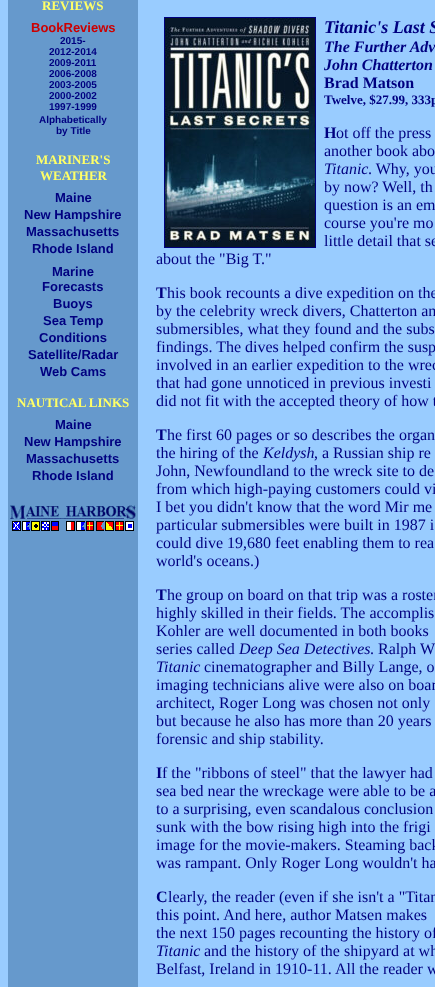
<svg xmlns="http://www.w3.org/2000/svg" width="435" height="987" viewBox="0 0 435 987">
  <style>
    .t1 { font: bold 13px Liberation Serif; fill: #ff6; }
    .t2 { font: bold 13px Liberation Sans; fill: #c00; }
    .t3 { font: bold 10px Liberation Sans; fill: #000080; }
    .t4 { font: bold 13px Liberation Sans; fill: #000080; }
    .t5 { font: italic bold 18px Liberation Serif; fill: #000080; }
    .t6 { font: italic bold 16px Liberation Serif; fill: #000080; }
    .t7 { font: bold 16px Liberation Serif; fill: #000080; }
    .t8 { font: bold 13px Liberation Serif; fill: #000080; }
    .t9 { font: 16px Liberation Serif; fill: #000080; }
    .t10 { font: italic 16px Liberation Serif; fill: #000080; }
  </style>
  <rect width="100%" height="100%" fill="#9cf"/>
  <rect x="8" y="0" width="130" height="987" fill="#69c"/>
  <text x="42" y="10" class="t1">REVIEWS</text>
  <text x="31" y="32" class="t2">BookReviews</text>
  <text x="60" y="44" class="t3">2015-</text>
  <text x="49" y="55" class="t3">2012-2014</text>
  <text x="49" y="66" class="t3">2009-2011</text>
  <text x="49" y="77" class="t3">2006-2008</text>
  <text x="49" y="88" class="t3">2003-2005</text>
  <text x="49" y="99" class="t3">2000-2002</text>
  <text x="49" y="110" class="t3">1997-1999</text>
  <text x="39" y="123" class="t3">Alphabetically</text>
  <text x="56" y="134" class="t3">by Title</text>
  <text x="36" y="164" class="t1">MARINER'S</text>
  <text x="40" y="180" class="t1">WEATHER</text>
  <text x="55" y="202" class="t4">Maine</text>
  <text x="24" y="219" class="t4">New Hampshire</text>
  <text x="26" y="236" class="t4">Massachusetts</text>
  <text x="32" y="253" class="t4">Rhode Island</text>
  <text x="52" y="276" class="t4">Marine</text>
  <text x="42" y="291" class="t4">Forecasts</text>
  <text x="53" y="308" class="t4">Buoys</text>
  <text x="43" y="325" class="t4">Sea Temp</text>
  <text x="39" y="342" class="t4">Conditions</text>
  <text x="28" y="359" class="t4">Satellite/Radar</text>
  <text x="40" y="376" class="t4">Web Cams</text>
  <text x="17" y="407" class="t1">NAUTICAL LINKS</text>
  <text x="55" y="429" class="t4">Maine</text>
  <text x="24" y="446" class="t4">New Hampshire</text>
  <text x="26" y="463" class="t4">Massachusetts</text>
  <text x="32" y="480" class="t4">Rhode Island</text>
  <image x="10" y="505" width="126" height="26" href="images/1.png"/>
  <rect x="164.5" y="17.5" width="151" height="230" fill="none" stroke="#000080"/>
  <image x="165" y="18" width="150" height="229" href="images/2.png"/>
  <text x="324" y="33" class="t5">Titanic's Last S</text>
  <text x="324" y="52" class="t6">The Further Adv</text>
  <text x="324" y="70" class="t6">John Chatterton</text>
  <text x="324" y="88" class="t7">Brad Matson</text>
  <text x="324" y="104" class="t8">Twelve, $27.99, 333p</text>
  <text x="324" y="138" class="t7">H</text>
  <text x="336" y="138" class="t9">ot off the press</text>
  <text x="324" y="156" class="t9">another book abo</text>
  <text x="324" y="174" class="t10">Titanic</text>
  <text x="368" y="174" class="t9">. Why, you</text>
  <text x="324" y="192" class="t9">by now? Well, th</text>
  <text x="324" y="210" class="t9">question is an em</text>
  <text x="324" y="228" class="t9">course you're mo</text>
  <text x="324" y="246" class="t9">little detail that se</text>
  <text x="156" y="264" class="t9">about the "Big T."</text>
  <text x="156" y="298" class="t7">T</text>
  <text x="167" y="298" class="t9">his book recounts a dive expedition on the</text>
  <text x="156" y="316" class="t9">by the celebrity wreck divers, Chatterton an</text>
  <text x="156" y="334" class="t9">submersibles, what they found and the subs</text>
  <text x="156" y="352" class="t9">findings. The dives helped confirm the susp</text>
  <text x="156" y="370" class="t9">involved in an earlier expedition to the wrec</text>
  <text x="156" y="388" class="t9">that had gone unnoticed in previous investi</text>
  <text x="156" y="406" class="t9">did not fit with the accepted theory of how t</text>
  <text x="156" y="440" class="t7">T</text>
  <text x="167" y="440" class="t9">he first 60 pages or so describes the organ</text>
  <text x="156" y="458" class="t9">the hiring of the</text>
  <text x="263" y="458" class="t10">Keldysh</text>
  <text x="314" y="458" class="t9">, a Russian ship re</text>
  <text x="156" y="476" class="t9">John, Newfoundland to the wreck site to de</text>
  <text x="156" y="494" class="t9">from which high-paying customers could vi</text>
  <text x="156" y="512" class="t9">I bet you didn't know that the word Mir me</text>
  <text x="156" y="530" class="t9">particular submersibles were built in 1987 i</text>
  <text x="156" y="548" class="t9">could dive 19,680 feet enabling them to rea</text>
  <text x="156" y="566" class="t9">world's oceans.)</text>
  <text x="156" y="600" class="t7">T</text>
  <text x="167" y="600" class="t9">he group on board on that trip was a roster</text>
  <text x="156" y="618" class="t9">highly skilled in their fields. The accomplis</text>
  <text x="156" y="636" class="t9">Kohler are well documented in both books</text>
  <text x="156" y="654" class="t9">series called</text>
  <text x="239" y="654" class="t10">Deep Sea Detectives</text>
  <text x="370" y="654" class="t9">. Ralph W</text>
  <text x="156" y="672" class="t10">Titanic</text>
  <text x="204" y="672" class="t9">cinematographer and Billy Lange, o</text>
  <text x="156" y="690" class="t9">imaging technicians alive were also on boar</text>
  <text x="156" y="708" class="t9">architect, Roger Long was chosen not only</text>
  <text x="156" y="726" class="t9">but because he also has more than 20 years</text>
  <text x="156" y="744" class="t9">forensic and ship stability.</text>
  <text x="156" y="778" class="t7">I</text>
  <text x="162" y="778" class="t9">f the "ribbons of steel" that the lawyer had</text>
  <text x="156" y="796" class="t9">sea bed near the wreckage were able to be a</text>
  <text x="156" y="814" class="t9">to a surprising, even scandalous conclusion</text>
  <text x="156" y="832" class="t9">sunk with the bow rising high into the frigi</text>
  <text x="156" y="850" class="t9">image for the movie-makers. Steaming back</text>
  <text x="156" y="868" class="t9">was rampant. Only Roger Long wouldn't ha</text>
  <text x="156" y="902" class="t7">C</text>
  <text x="168" y="902" class="t9">learly, the reader (even if she isn't a "Titan</text>
  <text x="156" y="920" class="t9">this point. And here, author Matsen makes</text>
  <text x="156" y="938" class="t9">the next 150 pages recounting the history of</text>
  <text x="156" y="956" class="t10">Titanic</text>
  <text x="204" y="956" class="t9">and the history of the shipyard at wh</text>
  <text x="156" y="974" class="t9">Belfast, Ireland in 1910-11. All the reader w</text>
</svg>
